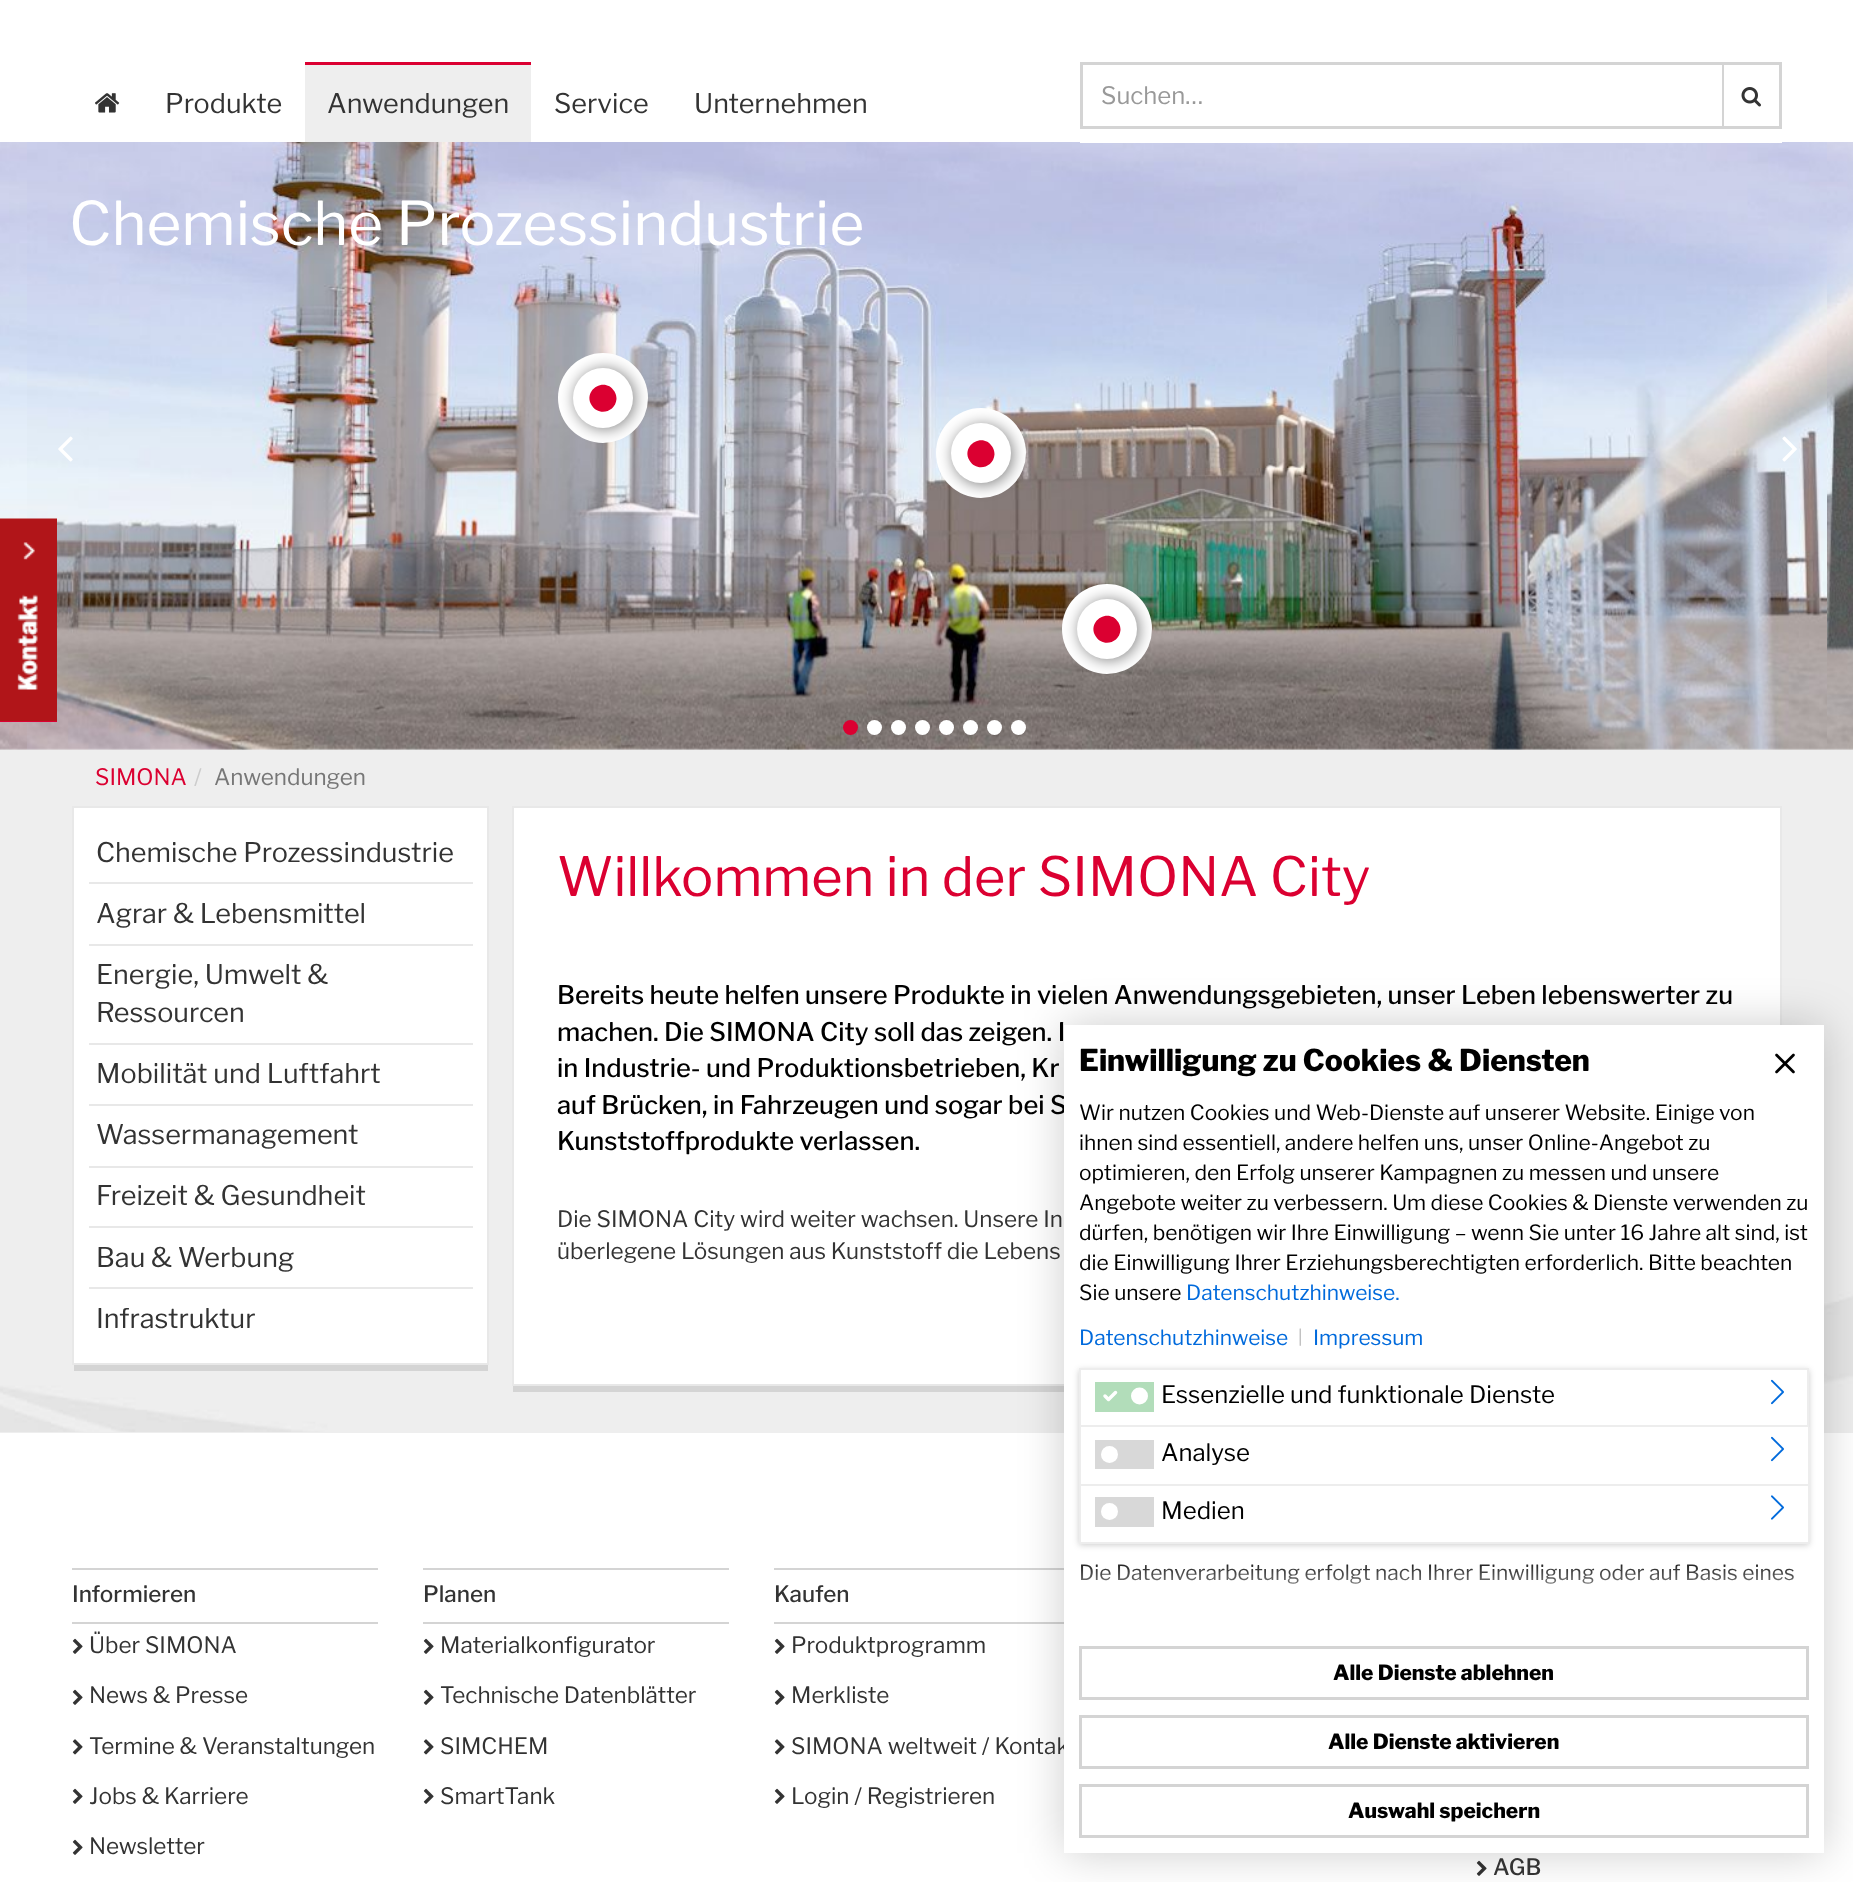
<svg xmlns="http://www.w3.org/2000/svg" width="1853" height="1882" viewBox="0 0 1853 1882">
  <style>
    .t1 { font: 27px Libre Franklin; fill: #333; }
    .t2 { font: 24px Libre Franklin; fill: #999; }
    .t3 { font: 60px Libre Franklin; fill: #fff; }
    .t4 { font: 22.5px Libre Franklin; fill: #db0031; }
    .t5 { font: 22.5px Libre Franklin; fill: #ccc; }
    .t6 { font: 22.5px Libre Franklin; fill: #777; }
    .t7 { font: 54px Libre Franklin; fill: #db0031; }
    .t8 { font: 500 25.5px Libre Franklin; fill: #000; }
    .t9 { font: 22.5px Libre Franklin; fill: #333; }
    .t10 { font: 800 30px Libre Franklin; fill: #000; }
    .t11 { font: 21px Libre Franklin; fill: #000; }
    .t12 { font: 21px Libre Franklin; fill: #006adc; }
    .t13 { font: 17px Libre Franklin; fill: #b3b3b3; }
    .t14 { font: 24px Libre Franklin; fill: #000; }
    .t15 { font: 800 21px Libre Franklin; fill: #000; }
    .t16 { font: 500 22.5px Libre Franklin; fill: #333; }
  </style>
  <defs>
    <clipPath id="clip1"><path d="M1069 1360H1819V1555H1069ZM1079 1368H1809V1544H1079Z" clip-rule="evenodd"/></clipPath>
    <linearGradient id="g1" gradientUnits="userSpaceOnUse" x1="1436" y1="1556" x2="1436" y2="1616"><stop offset="0" stop-color="#fff" stop-opacity="0"/><stop offset="1" stop-color="#fff"/></linearGradient>
  </defs>
  <rect width="100%" height="100%" fill="#fff"/>
  <image x="95" y="93" width="25" height="20" href="images/1.png"/>
  <text x="165" y="113" class="t1">Produkte</text>
  <rect x="305" y="65" width="226" height="77" fill="#eee"/>
  <rect x="305" y="62" width="226" height="3" fill="#db0031"/>
  <text x="327" y="113" class="t1">Anwendungen</text>
  <text x="554" y="113" class="t1">Service</text>
  <text x="694" y="113" class="t1">Unternehmen</text>
  <rect x="0" y="748" width="1853" height="2" fill="#eee"/>
  <image x="27" y="142" width="1800" height="608" href="images/4.png"/>
  <rect x="1080" y="142" width="702" height="1" fill="#fff"/>
  <rect x="1081.5" y="63.5" width="642" height="64" fill="none" stroke="#d4d4d4" stroke-width="3"/>
  <text x="1101" y="104" class="t2">Suchen…</text>
  <rect x="1724" y="65" width="1" height="61" fill="#fff"/>
  <rect x="1724" y="62" width="58" height="3" fill="#d4d4d4"/>
  <rect x="1779" y="62" width="3" height="67" fill="#d4d4d4"/>
  <rect x="1724" y="126" width="58" height="3" fill="#d4d4d4"/>
  <image x="1741" y="87" width="20" height="20" href="images/2.png"/>
  <image x="0" y="142" width="27" height="608" href="images/3.png"/>
  <text x="69" y="245" class="t3">Chemische Prozessindustrie</text>
  <circle cx="603" cy="398" r="45" fill="#fff"/>
  <rect x="575" y="369" width="60" height="60" rx="30" fill="#00000080" filter="blur(7.5px)"/>
  <circle cx="603" cy="398" r="30" fill="#fff"/>
  <path d="M614.5 391.5C616 394 616.5 396.5 616.5 399C615.5 412.5 598 416.5 591.5 405C582.5 389.5 605.5 376 614.5 391.5Z" fill="#db0031"/>
  <circle cx="981" cy="453" r="45" fill="#fff"/>
  <rect x="953" y="425" width="60" height="60" rx="30" fill="#00000080" filter="blur(7.5px)"/>
  <circle cx="981" cy="453" r="30" fill="#fff"/>
  <path d="M992.5 447C994 449.5 994.5 452 994.5 454.5C993.5 468 976 472 969.5 460.5C960.5 445 983.5 431.5 992.5 447Z" fill="#db0031"/>
  <circle cx="1107" cy="629" r="45" fill="#fff"/>
  <rect x="1079" y="600" width="60" height="60" rx="30" fill="#00000080" filter="blur(7.5px)"/>
  <circle cx="1107" cy="629" r="30" fill="#fff"/>
  <path d="M1118.5 622.5C1120 625 1120.5 627.5 1120.5 630C1119.5 643.5 1102 647.5 1095.5 636C1086.5 620.5 1109.5 607 1118.5 622.5Z" fill="#db0031"/>
  <image x="1827" y="142" width="26" height="608" href="images/5.png"/>
  <image x="58" y="436" width="15" height="26" href="images/6.png"/>
  <image x="1782" y="436" width="15" height="26" href="images/7.png"/>
  <circle cx="850.5" cy="727.5" r="7.5" fill="#db0031"/>
  <circle cx="874.5" cy="727.5" r="7.5" fill="#fff"/>
  <circle cx="898.5" cy="727.5" r="7.5" fill="#fff"/>
  <circle cx="922.5" cy="727.5" r="7.5" fill="#fff"/>
  <circle cx="946.5" cy="727.5" r="7.5" fill="#fff"/>
  <circle cx="970.5" cy="727.5" r="7.5" fill="#fff"/>
  <circle cx="994.5" cy="727.5" r="7.5" fill="#fff"/>
  <circle cx="1018.5" cy="727.5" r="7.5" fill="#fff"/>
  <rect x="0" y="721" width="57" height="1" fill="#db0031"/>
  <image x="0" y="518" width="57" height="203" href="images/8.png"/>
  <rect x="0" y="1432" width="1853" height="1" fill="#eee"/>
  <image x="0" y="750" width="1853" height="682" href="images/9.png"/>
  <text x="95" y="785" class="t4">SIMONA</text>
  <text x="194" y="785" class="t5">/</text>
  <text x="214" y="785" class="t6">Anwendungen</text>
  <rect x="74" y="1365" width="414" height="6" fill="#d4d4d4"/>
  <rect x="73" y="807" width="415" height="557" fill="#fff" stroke="#e8e8e8" stroke-width="2"/>
  <rect x="89" y="882" width="384" height="2" fill="#e8e8e8"/>
  <text x="96" y="862" class="t1">Chemische Prozessindustrie</text>
  <rect x="89" y="944" width="384" height="2" fill="#e8e8e8"/>
  <text x="96" y="923" class="t1">Agrar &amp; Lebensmittel</text>
  <rect x="89" y="1043" width="384" height="2" fill="#e8e8e8"/>
  <text x="96" y="984" class="t1">Energie, Umwelt &amp;</text>
  <text x="96" y="1022" class="t1">Ressourcen</text>
  <rect x="89" y="1104" width="384" height="2" fill="#e8e8e8"/>
  <text x="96" y="1083" class="t1">Mobilität und Luftfahrt</text>
  <rect x="89" y="1166" width="384" height="2" fill="#e8e8e8"/>
  <text x="96" y="1144" class="t1">Wassermanagement</text>
  <rect x="89" y="1226" width="384" height="2" fill="#e8e8e8"/>
  <text x="96" y="1205" class="t1">Freizeit &amp; Gesundheit</text>
  <rect x="89" y="1287" width="384" height="2" fill="#e8e8e8"/>
  <text x="96" y="1267" class="t1">Bau &amp; Werbung</text>
  <text x="96" y="1328" class="t1">Infrastruktur</text>
  <rect x="513" y="1386" width="551" height="6" fill="#d4d4d4"/>
  <rect x="513" y="807" width="1268" height="578" fill="#fff" stroke="#e8e8e8" stroke-width="2"/>
  <text x="557" y="896" class="t7">Willkommen in der SIMONA City</text>
  <text x="557" y="1004" class="t8">Bereits heute helfen unsere Produkte in vielen Anwendungsgebieten, unser Leben lebenswerter zu</text>
  <text x="557" y="1041" class="t8">machen. Die SIMONA City soll das zeigen. I</text>
  <text x="557" y="1077" class="t8">in Industrie- und Produktionsbetrieben, Kr</text>
  <text x="557" y="1114" class="t8">auf Brücken, in Fahrzeugen und sogar bei S</text>
  <text x="557" y="1150" class="t8">Kunststoffprodukte verlassen.</text>
  <text x="557" y="1227" class="t9">Die SIMONA City wird weiter wachsen. Unsere In</text>
  <text x="557" y="1259" class="t9">überlegene Lösungen aus Kunststoff die Lebens</text>
  <rect x="774" y="1568" width="290" height="2" fill="#d4d4d4"/>
  <rect x="774" y="1622" width="290" height="2" fill="#d4d4d4"/>
  <image x="1476" y="1860" width="11" height="16" href="images/13.png"/>
  <rect x="1064" y="1025" width="760" height="828" fill="#00000033" filter="blur(22.5px)"/>
  <text x="791" y="1754" class="t9">SIMONA weltweit / Kontak</text>
  <rect x="1064" y="1025" width="760" height="828" fill="#fff"/>
  <text x="1079" y="1071" class="t10">Einwilligung zu Cookies &amp; Diensten</text>
  <text x="1079" y="1120" class="t11">Wir nutzen Cookies und Web-Dienste auf unserer Website. Einige von</text>
  <text x="1079" y="1150" class="t11">ihnen sind essentiell, andere helfen uns, unser Online-Angebot zu</text>
  <text x="1079" y="1180" class="t11">optimieren, den Erfolg unserer Kampagnen zu messen und unsere</text>
  <text x="1079" y="1210" class="t11">Angebote weiter zu verbessern. Um diese Cookies &amp; Dienste verwenden zu</text>
  <text x="1079" y="1240" class="t11">dürfen, benötigen wir Ihre Einwilligung – wenn Sie unter 16 Jahre alt sind, ist</text>
  <text x="1079" y="1270" class="t11">die Einwilligung Ihrer Erziehungsberechtigten erforderlich. Bitte beachten</text>
  <text x="1079" y="1300" class="t11">Sie unsere</text>
  <text x="1186" y="1300" class="t12">Datenschutzhinweise.</text>
  <text x="1079" y="1345" class="t12">Datenschutzhinweise</text>
  <text x="1298" y="1343" class="t13">|</text>
  <text x="1313" y="1345" class="t12">Impressum</text>
  <g clip-path="url(#clip1)">
    <rect x="1079" y="1370" width="730" height="175" fill="#00000033" filter="blur(3px)"/>
  </g>
  <rect x="1080" y="1369" width="728" height="57" fill="none" stroke="#ededed" stroke-width="2"/>
  <rect x="1095" y="1382" width="59" height="30" fill="#b2ddba"/>
  <circle cx="1139.5" cy="1396" r="8.5" fill="#fff"/>
  <path d="M1105 1396L1108.5 1399.5L1115.5 1392.5" fill="none" stroke="#fff" stroke-width="3.5" stroke-linecap="round" stroke-linejoin="round"/>
  <text x="1161" y="1403" class="t14">Essenzielle und funktionale Dienste</text>
  <image x="1771" y="1379" width="13" height="26" href="images/10.png"/>
  <rect x="1808" y="1427" width="2" height="58" fill="#ededed"/>
  <rect x="1079" y="1484" width="730" height="2" fill="#ededed"/>
  <rect x="1079" y="1427" width="2" height="58" fill="#ededed"/>
  <rect x="1095" y="1440" width="59" height="29" fill="#d8d8d8"/>
  <circle cx="1109.5" cy="1454.5" r="8.5" fill="#fff"/>
  <path d="M1105 1454.5L1108.5 1458L1115.5 1451" fill="none" stroke="#fff" stroke-width="3.5" stroke-linecap="round" stroke-linejoin="round"/>
  <text x="1161" y="1461" class="t14">Analyse</text>
  <image x="1771" y="1436" width="13" height="26" href="images/10.png"/>
  <rect x="1808" y="1485" width="2" height="59" fill="#ededed"/>
  <rect x="1079" y="1542" width="730" height="2" fill="#ededed"/>
  <rect x="1079" y="1485" width="2" height="59" fill="#ededed"/>
  <rect x="1095" y="1497" width="59" height="30" fill="#d8d8d8"/>
  <circle cx="1109.5" cy="1511.5" r="8.5" fill="#fff"/>
  <path d="M1105 1511.5L1108.5 1515L1115.5 1508" fill="none" stroke="#fff" stroke-width="3.5" stroke-linecap="round" stroke-linejoin="round"/>
  <text x="1161" y="1519" class="t14">Medien</text>
  <image x="1771" y="1495" width="13" height="25" href="images/11.png"/>
  <text x="1079" y="1580" class="t11">Die Datenverarbeitung erfolgt nach Ihrer Einwilligung oder auf Basis eines</text>
  <rect x="1080" y="1564" width="714" height="20" fill="url(#g1)"/>
  <rect x="1080.5" y="1647.5" width="727" height="51" fill="none" stroke="#d4d4d4" stroke-width="3"/>
  <text x="1333" y="1680" class="t15">Alle Dienste ablehnen</text>
  <rect x="1080.5" y="1716.5" width="727" height="51" fill="none" stroke="#d4d4d4" stroke-width="3"/>
  <text x="1328" y="1749" class="t15">Alle Dienste aktivieren</text>
  <rect x="1080.5" y="1785.5" width="727" height="51" fill="none" stroke="#d4d4d4" stroke-width="3"/>
  <text x="1348" y="1818" class="t15">Auswahl speichern</text>
  <image x="1775" y="1053" width="20" height="21" href="images/12.png"/>
  <rect x="72" y="1568" width="306" height="2" fill="#d4d4d4"/>
  <rect x="72" y="1622" width="306" height="2" fill="#d4d4d4"/>
  <text x="72" y="1602" class="t16">Informieren</text>
  <image x="72" y="1638" width="11" height="16" href="images/13.png"/>
  <text x="89" y="1653" class="t9">Über SIMONA</text>
  <image x="72" y="1689" width="11" height="16" href="images/13.png"/>
  <text x="89" y="1703" class="t9">News &amp; Presse</text>
  <image x="72" y="1739" width="11" height="16" href="images/14.png"/>
  <text x="89" y="1754" class="t9">Termine &amp; Veranstaltungen</text>
  <image x="72" y="1788" width="11" height="16" href="images/13.png"/>
  <text x="89" y="1804" class="t9">Jobs &amp; Karriere</text>
  <image x="72" y="1839" width="11" height="16" href="images/13.png"/>
  <text x="89" y="1854" class="t9">Newsletter</text>
  <rect x="423" y="1568" width="306" height="2" fill="#d4d4d4"/>
  <rect x="423" y="1622" width="306" height="2" fill="#d4d4d4"/>
  <text x="423" y="1602" class="t16">Planen</text>
  <image x="423" y="1638" width="11" height="16" href="images/13.png"/>
  <text x="440" y="1653" class="t9">Materialkonfigurator</text>
  <image x="423" y="1689" width="11" height="16" href="images/13.png"/>
  <text x="440" y="1703" class="t9">Technische Datenblätter</text>
  <image x="423" y="1739" width="11" height="16" href="images/14.png"/>
  <text x="440" y="1754" class="t9">SIMCHEM</text>
  <image x="423" y="1788" width="11" height="16" href="images/13.png"/>
  <text x="440" y="1804" class="t9">SmartTank</text>
  <text x="774" y="1602" class="t16">Kaufen</text>
  <image x="774" y="1638" width="11" height="16" href="images/13.png"/>
  <text x="791" y="1653" class="t9">Produktprogramm</text>
  <image x="774" y="1689" width="11" height="16" href="images/13.png"/>
  <text x="791" y="1703" class="t9">Merkliste</text>
  <image x="774" y="1739" width="11" height="16" href="images/14.png"/>
  <image x="774" y="1788" width="11" height="16" href="images/13.png"/>
  <text x="791" y="1804" class="t9">Login / Registrieren</text>
  <text x="1493" y="1875" class="t16">AGB</text>
</svg>
